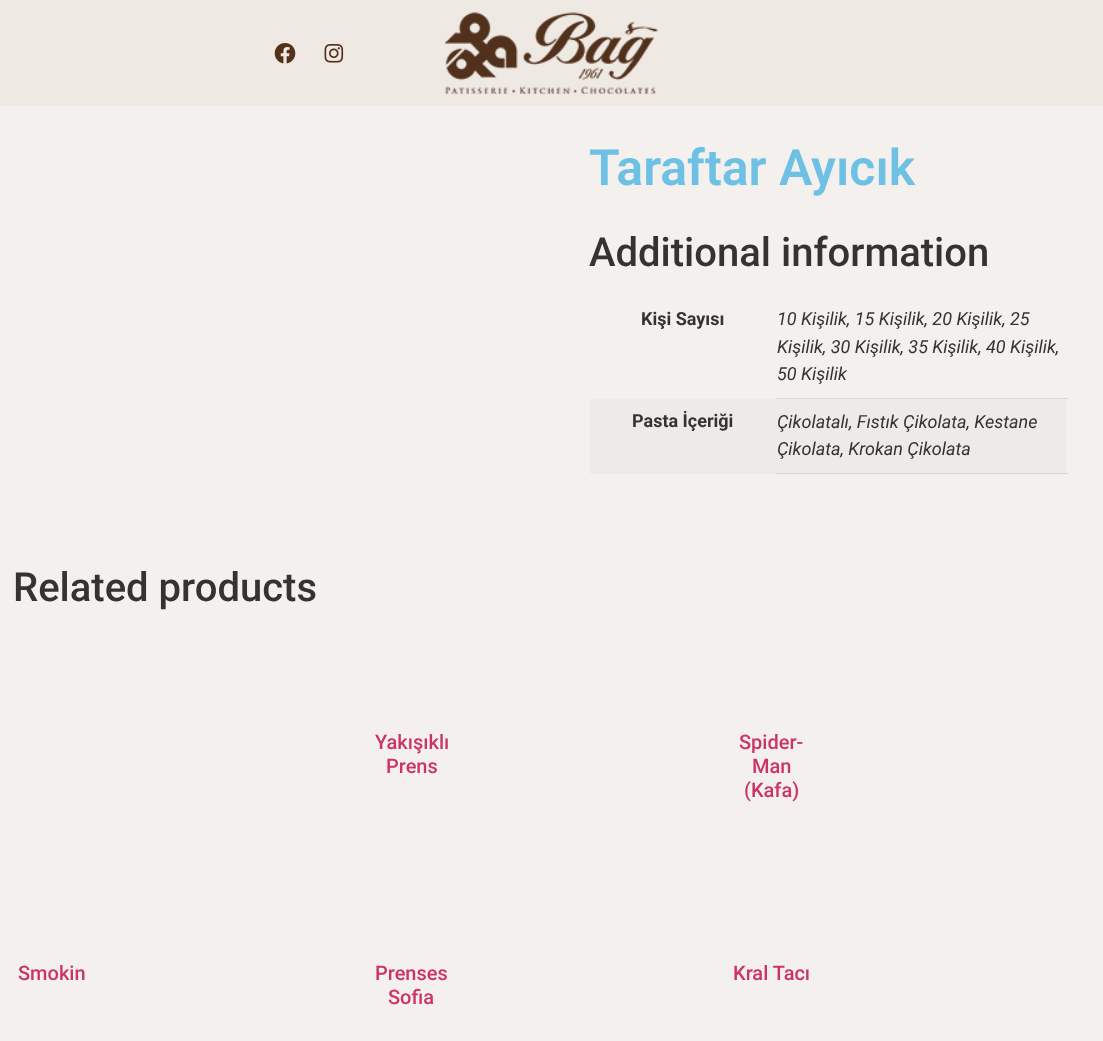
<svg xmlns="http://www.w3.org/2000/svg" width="1103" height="1041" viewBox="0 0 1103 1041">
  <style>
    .t1 { font: 600 50px Roboto; fill: #6ec1e4; }
    .t2 { font: 500 40px Roboto; fill: #333; }
    .t3 { font: bold 18px Roboto; fill: #333; }
    .t4 { font: italic 18px Roboto; fill: #333; }
    .t5 { font: 500 20px Roboto; fill: #c36; }
  </style>
  <rect width="100%" height="100%" fill="#f4f0ed"/>
  <rect x="1066" y="473" width="2" height="1" fill="#dcd8d5"/>
  <rect x="0" y="0" width="1103" height="106" fill="#efe9e3"/>
  <image x="274" y="43" width="22" height="21" href="images/1.png"/>
  <image x="324" y="44" width="20" height="19" href="images/2.png"/>
  <image x="445" y="12" width="213" height="82" href="images/3.png"/>
  <text x="589" y="185" class="t1">Taraftar Ayıcık</text>
  <text x="589" y="266" class="t2">Additional information</text>
  <text x="641" y="325" class="t3">Kişi Sayısı</text>
  <rect x="776" y="398" width="292" height="1" fill="#dcd8d5"/>
  <text x="777" y="325" class="t4">10 Kişilik, 15 Kişilik, 20 Kişilik, 25</text>
  <text x="777" y="353" class="t4">Kişilik, 30 Kişilik, 35 Kişilik, 40 Kişilik,</text>
  <text x="777" y="380" class="t4">50 Kişilik</text>
  <rect x="590" y="399" width="188" height="75" fill="#eeeae7"/>
  <rect x="776" y="473" width="290" height="1" fill="#d6d3d0"/>
  <text x="632" y="427" class="t3">Pasta İçeriği</text>
  <rect x="778" y="399" width="288" height="74" fill="#eeeae7"/>
  <text x="777" y="428" class="t4">Çikolatalı, Fıstık Çikolata, Kestane</text>
  <text x="777" y="455" class="t4">Çikolata, Krokan Çikolata</text>
  <text x="13" y="601" class="t2">Related products</text>
  <text x="375" y="749" class="t5">Yakışıklı</text>
  <text x="386" y="773" class="t5">Prens</text>
  <text x="739" y="749" class="t5">Spider-</text>
  <text x="752" y="773" class="t5">Man</text>
  <text x="744" y="797" class="t5">(Kafa)</text>
  <text x="18" y="980" class="t5">Smokin</text>
  <text x="375" y="980" class="t5">Prenses</text>
  <text x="388" y="1004" class="t5">Sofia</text>
  <text x="733" y="980" class="t5">Kral Tacı</text>
</svg>
